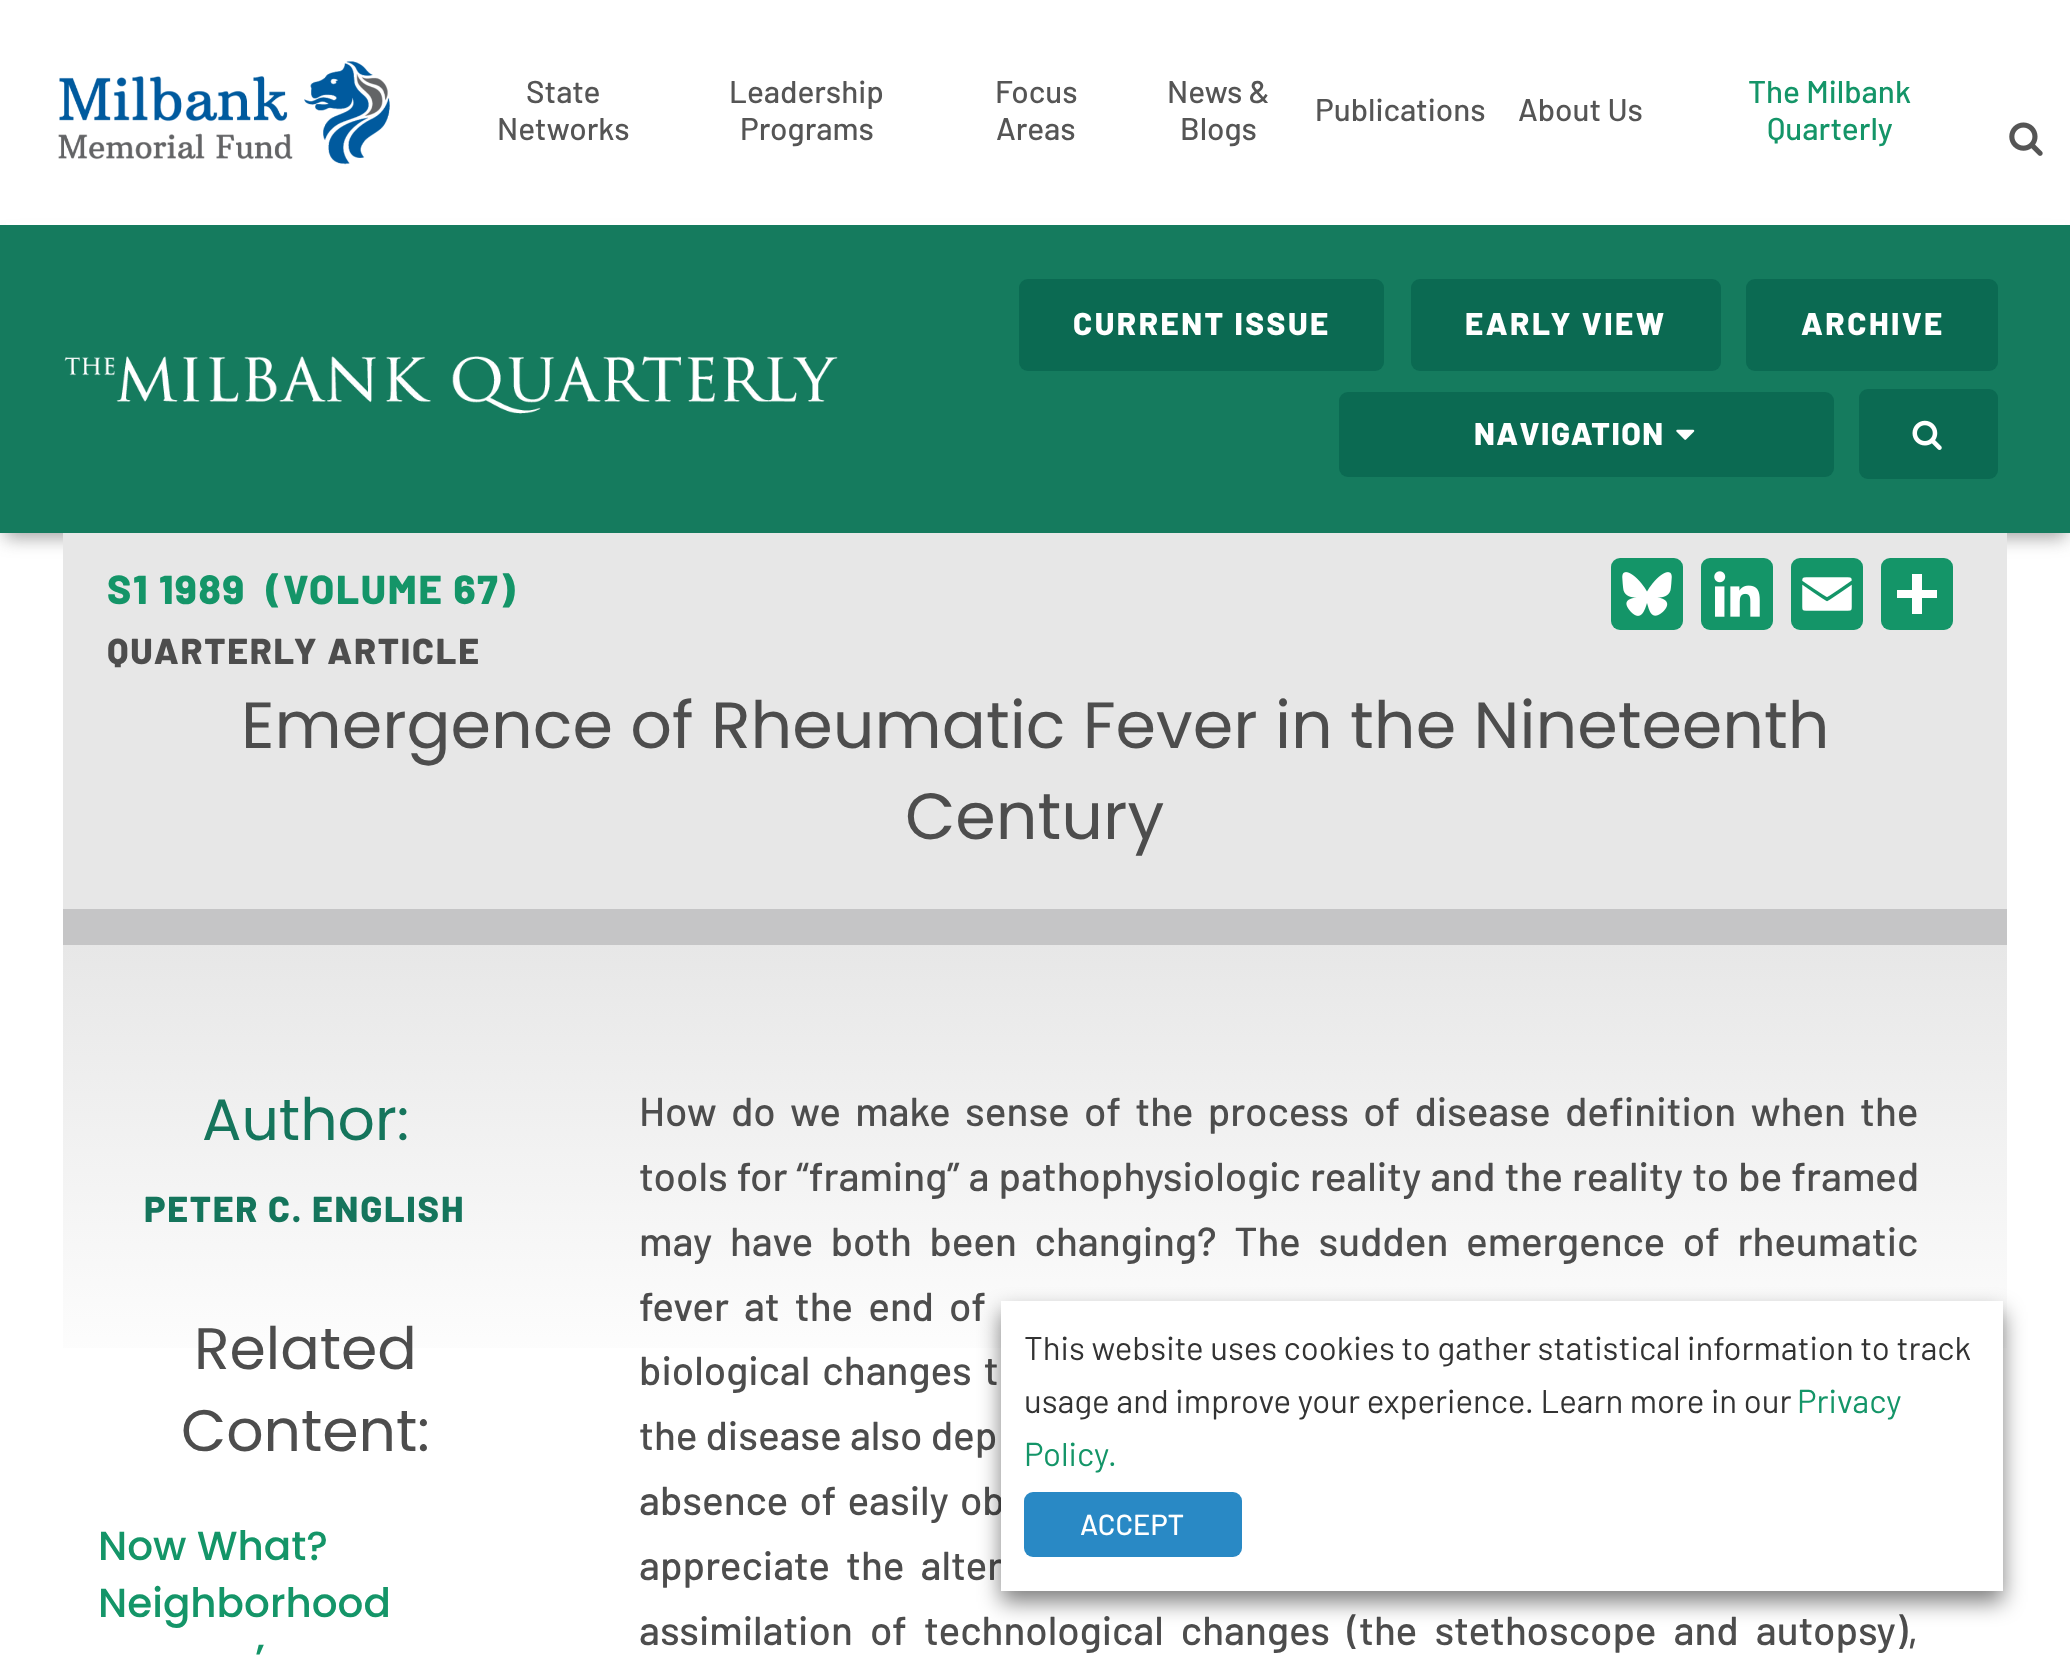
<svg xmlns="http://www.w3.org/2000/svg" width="2070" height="1658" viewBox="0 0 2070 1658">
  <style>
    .t1 { font: 500 31.5px Barlow; fill: #555; }
    .t2 { font: 500 31.5px Barlow; fill: #149568; }
    .t3 { font: 800 31.5px Barlow; letter-spacing: 2.5px; fill: #fff; }
    .t4 { font: 800 31.5px Barlow; letter-spacing: 1.5px; fill: #fff; }
    .t5 { font: 800 40.5px Barlow; letter-spacing: 1.75px; fill: #149568; }
    .t6 { font: 800 36px Barlow; letter-spacing: 1.75px; fill: #4d4d4d; }
    .t7 { font: 65.25px Poppins; fill: #4d4d4d; }
    .t8 { font: 58.5px Poppins; fill: #15755c; }
    .t9 { font: 800 36px Barlow; letter-spacing: 1.75px; fill: #15755c; }
    .t10 { font: 58.5px Poppins; fill: #4d4d4d; }
    .t11 { font: 500 40.5px Poppins; fill: #149568; }
    .t12 { font: 500 40.5px Barlow; fill: #4d4d4d; }
    .t13 { font: 33px Barlow; fill: #333; }
    .t14 { font: 33px Barlow; fill: #149568; }
    .t15 { font: 500 29px Barlow; fill: #fff; }
  </style>
  <defs>
    <linearGradient id="g1" gradientUnits="userSpaceOnUse" x1="1035" y1="945" x2="1035" y2="1395"><stop offset="0" stop-color="#e7e7e7"/><stop offset="1" stop-color="#fff"/></linearGradient>
  </defs>
  <rect width="100%" height="100%" fill="#fff"/>
  <rect x="5" y="239" width="2061" height="299" fill="#4d4d4d80" filter="blur(9px)"/>
  <rect x="6" y="222" width="2059" height="3" fill="#fff"/>
  <image x="58" y="61" width="332" height="104" href="images/1.png"/>
  <text x="526" y="103" class="t1">State</text>
  <text x="497" y="140" class="t1">Networks</text>
  <text x="729" y="103" class="t1">Leadership</text>
  <text x="740" y="140" class="t1">Programs</text>
  <text x="995" y="103" class="t1">Focus</text>
  <text x="996" y="140" class="t1">Areas</text>
  <text x="1167" y="103" class="t1">News &amp;</text>
  <text x="1180" y="140" class="t1">Blogs</text>
  <text x="1315" y="121" class="t1">Publications</text>
  <text x="1518" y="121" class="t1">About Us</text>
  <text x="1748" y="103" class="t2">The Milbank</text>
  <text x="1767" y="140" class="t2">Quarterly</text>
  <image x="2009" y="122" width="34" height="34" href="images/2.png"/>
  <rect x="0" y="225" width="2070" height="308" fill="#157b5e"/>
  <image x="64" y="356" width="774" height="58" href="images/3.png"/>
  <rect x="1019" y="279" width="365" height="92" rx="9" fill="#0b6a52"/>
  <text x="1073" y="335" class="t3">CURRENT ISSUE</text>
  <rect x="1411" y="279" width="310" height="92" rx="9" fill="#0b6a52"/>
  <text x="1465" y="335" class="t3">EARLY VIEW</text>
  <rect x="1746" y="279" width="252" height="92" rx="9" fill="#0b6a52"/>
  <text x="1801" y="335" class="t3">ARCHIVE</text>
  <rect x="1339" y="392" width="495" height="85" rx="9" fill="#0b6a52"/>
  <text x="1474" y="445" class="t4">NAVIGATION</text>
  <image x="1676" y="429" width="19" height="11" href="images/4.png"/>
  <rect x="1859" y="389" width="139" height="90" rx="9" fill="#0b6a52"/>
  <image x="1912" y="420" width="30" height="30" href="images/5.png"/>
  <rect x="63" y="533" width="1944" height="376" fill="#e7e7e7"/>
  <text x="107" y="604" class="t5">S1 1989</text>
  <text x="266" y="604" class="t5">(VOLUME 67)</text>
  <text x="107" y="664" class="t6">QUARTERLY ARTICLE</text>
  <rect x="1611" y="558" width="72" height="72" rx="9" fill="#149568"/>
  <image x="1622" y="572" width="50" height="44" href="images/6.png"/>
  <rect x="1701" y="558" width="72" height="72" rx="9" fill="#149568"/>
  <image x="1714" y="571" width="46" height="46" href="images/7.png"/>
  <rect x="1791" y="558" width="72" height="72" rx="9" fill="#149568"/>
  <image x="1802" y="577" width="50" height="34" href="images/8.png"/>
  <rect x="1881" y="558" width="72" height="72" rx="9" fill="#149568"/>
  <rect x="1912" y="574" width="10" height="40" fill="#fff"/>
  <rect x="1897" y="590" width="40" height="8" fill="#fff"/>
  <text x="241" y="748" class="t7">Emergence of Rheumatic Fever in the Nineteenth</text>
  <text x="905" y="839" class="t7">Century</text>
  <rect x="63" y="909" width="1944" height="36" fill="#c5c5c6"/>
  <rect x="63" y="945" width="1944" height="403" fill="url(#g1)"/>
  <text x="202" y="1140" class="t8">Author:</text>
  <text x="144" y="1222" class="t9">PETER C. ENGLISH</text>
  <text x="194" y="1369" class="t10">Related</text>
  <text x="181" y="1451" class="t10">Content:</text>
  <text x="98" y="1560" class="t11">Now What?</text>
  <text x="98" y="1617" class="t11">Neighborhood</text>
  <text x="255" y="1673" class="t11">’</text>
  <text x="639" y="1126" word-spacing="6.1" class="t12">How do we make sense of the process of disease definition when the</text>
  <text x="639" y="1191" word-spacing="1" class="t12">tools for “framing” a pathophysiologic reality and the reality to be framed</text>
  <text x="639" y="1256" word-spacing="9.5" class="t12">may have both been changing? The sudden emergence of rheumatic</text>
  <text x="639" y="1321" word-spacing="7" class="t12">fever at the end of</text>
  <text x="639" y="1385" word-spacing="4" class="t12">biological changes t</text>
  <text x="639" y="1450" class="t12">the disease also dep</text>
  <text x="639" y="1515" word-spacing="3" class="t12">absence of easily ob</text>
  <text x="639" y="1580" word-spacing="8" class="t12">appreciate the alter</text>
  <text x="639" y="1645" word-spacing="9" class="t12">assimilation of technological changes (the stethoscope and autopsy),</text>
  <rect x="1001" y="1312" width="1002" height="290" fill="#00000080" filter="blur(11px)"/>
  <rect x="1001" y="1301" width="1002" height="290" fill="#fff"/>
  <text x="1024" y="1360" class="t13">This website uses cookies to gather statistical information to track</text>
  <text x="1024" y="1413" class="t13">usage and improve your experience. Learn more in our</text>
  <text x="1797" y="1413" class="t14">Privacy</text>
  <text x="1024" y="1466" class="t14">Policy.</text>
  <rect x="1024" y="1492" width="218" height="65" rx="9" fill="#2989c5"/>
  <text x="1080" y="1535" class="t15">ACCEPT</text>
</svg>
